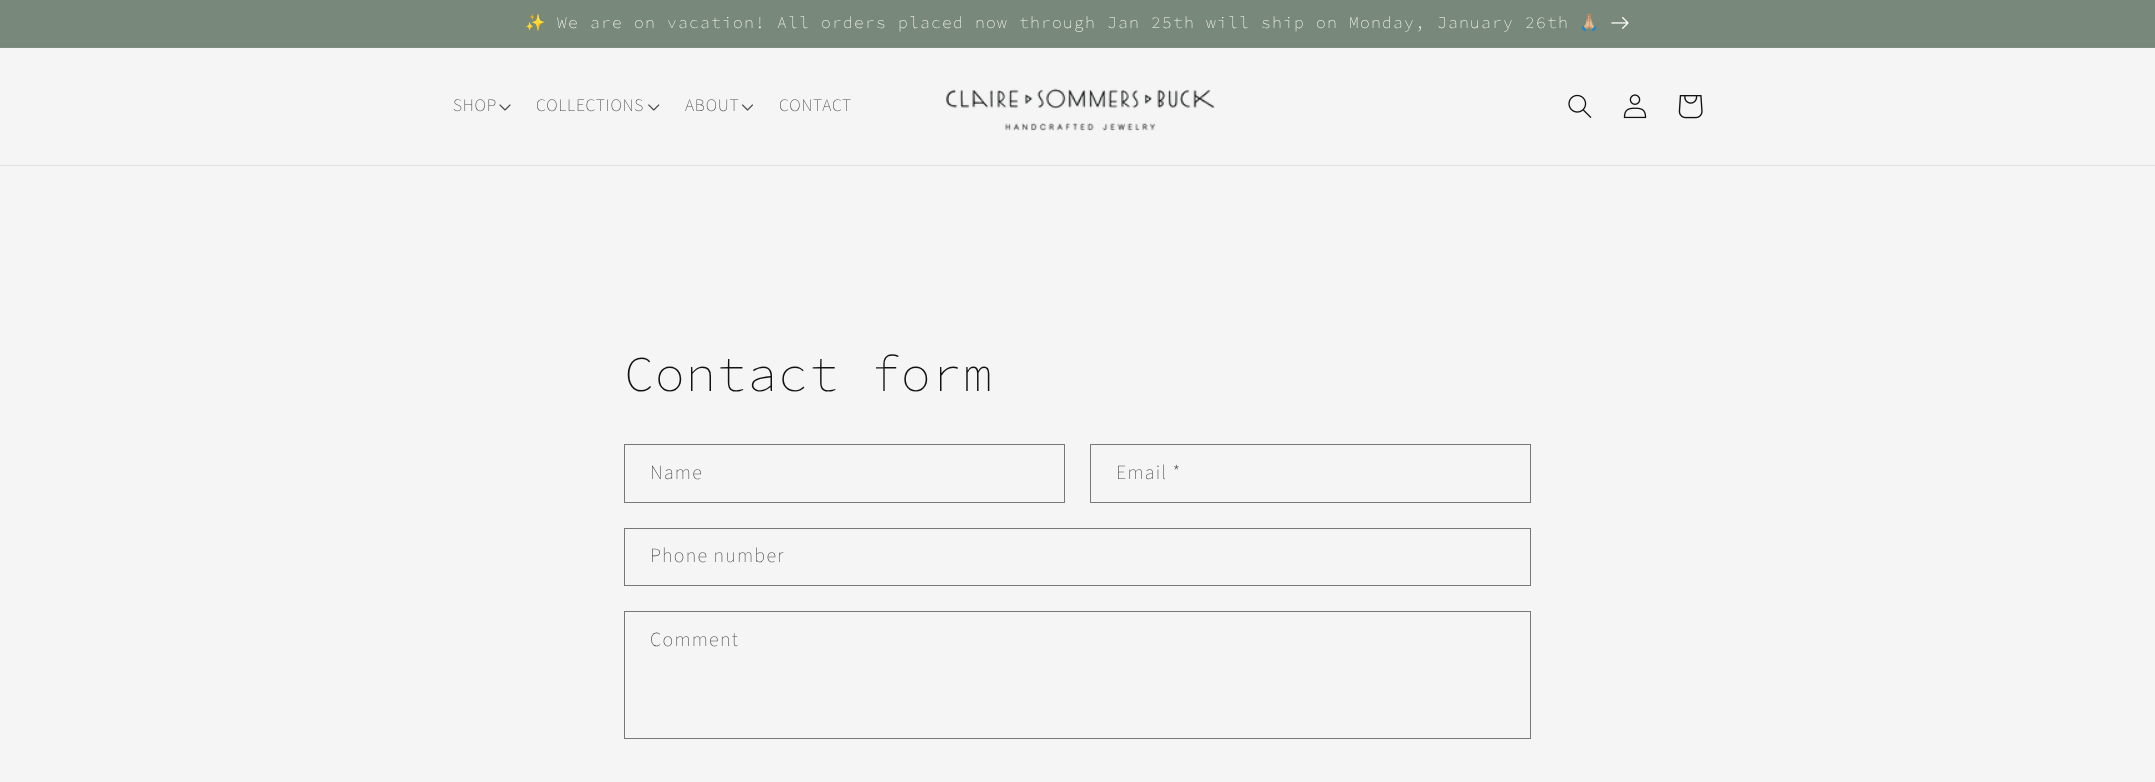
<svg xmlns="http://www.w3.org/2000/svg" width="2155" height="782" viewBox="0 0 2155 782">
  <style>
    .t1 { font: 16.25px Noto Color Emoji; letter-spacing: 1.25px; fill: #fafaf7; }
    .t2 { font: 200 16.25px Source Code Pro; letter-spacing: 1.25px; fill: #fafaf7; }
    .t3 { font: 200 17.5px Source Sans Pro; letter-spacing: 0.75px; fill: #4b4b4b; }
    .t4 { font: 200 50px Source Code Pro; letter-spacing: 0.75px; fill: #121212; }
    .t5 { font: 200 20px Source Sans Pro; letter-spacing: 1.25px; fill: #4b4b4b; }
  </style>
  <rect width="100%" height="100%" fill="#f5f5f5"/>
  <rect x="0" y="47" width="2155" height="1" fill="#7f8f81"/>
  <rect x="0" y="46" width="2155" height="1" fill="#768578"/>
  <rect x="0" y="0" width="2155" height="46" fill="#78887a"/>
  <text x="525" y="28" class="t1">✨</text>
  <text x="557" y="28" class="t2">We are on vacation! All orders placed now through Jan 25th will ship on Monday, January 26th</text>
  <text x="1579" y="28" class="t1">🙏🏼</text>
  <image x="1611" y="16" width="18" height="13" href="images/1.png"/>
  <rect x="0" y="165" width="2155" height="1" fill="#e3e3e3"/>
  <text x="453" y="111" class="t3">SHOP</text>
  <image x="499" y="104" width="12" height="7" href="images/2.png"/>
  <text x="536" y="111" class="t3">COLLECTIONS</text>
  <image x="648" y="104" width="12" height="7" href="images/3.png"/>
  <text x="685" y="111" class="t3">ABOUT</text>
  <image x="742" y="104" width="11" height="7" href="images/4.png"/>
  <text x="779" y="111" class="t3">CONTACT</text>
  <image x="946" y="88" width="269" height="43" href="images/5.png"/>
  <image x="1568" y="94" width="24" height="24" href="images/6.png"/>
  <image x="1623" y="94" width="24" height="25" href="images/7.png"/>
  <image x="1678" y="95" width="25" height="24" href="images/8.png"/>
  <text x="624" y="391" class="t4">Contact form</text>
  <rect x="624.5" y="444.5" width="440" height="58" fill="none" stroke="#787878"/>
  <text x="650" y="479" class="t5">Name</text>
  <rect x="1090.5" y="444.5" width="440" height="58" fill="none" stroke="#787878"/>
  <text x="1116" y="479" class="t5">Email *</text>
  <rect x="624.5" y="528.5" width="906" height="57" fill="none" stroke="#787878"/>
  <text x="650" y="562" class="t5">Phone number</text>
  <rect x="624.5" y="611.5" width="906" height="127" fill="none" stroke="#787878"/>
  <text x="650" y="646" class="t5">Comment</text>
</svg>
